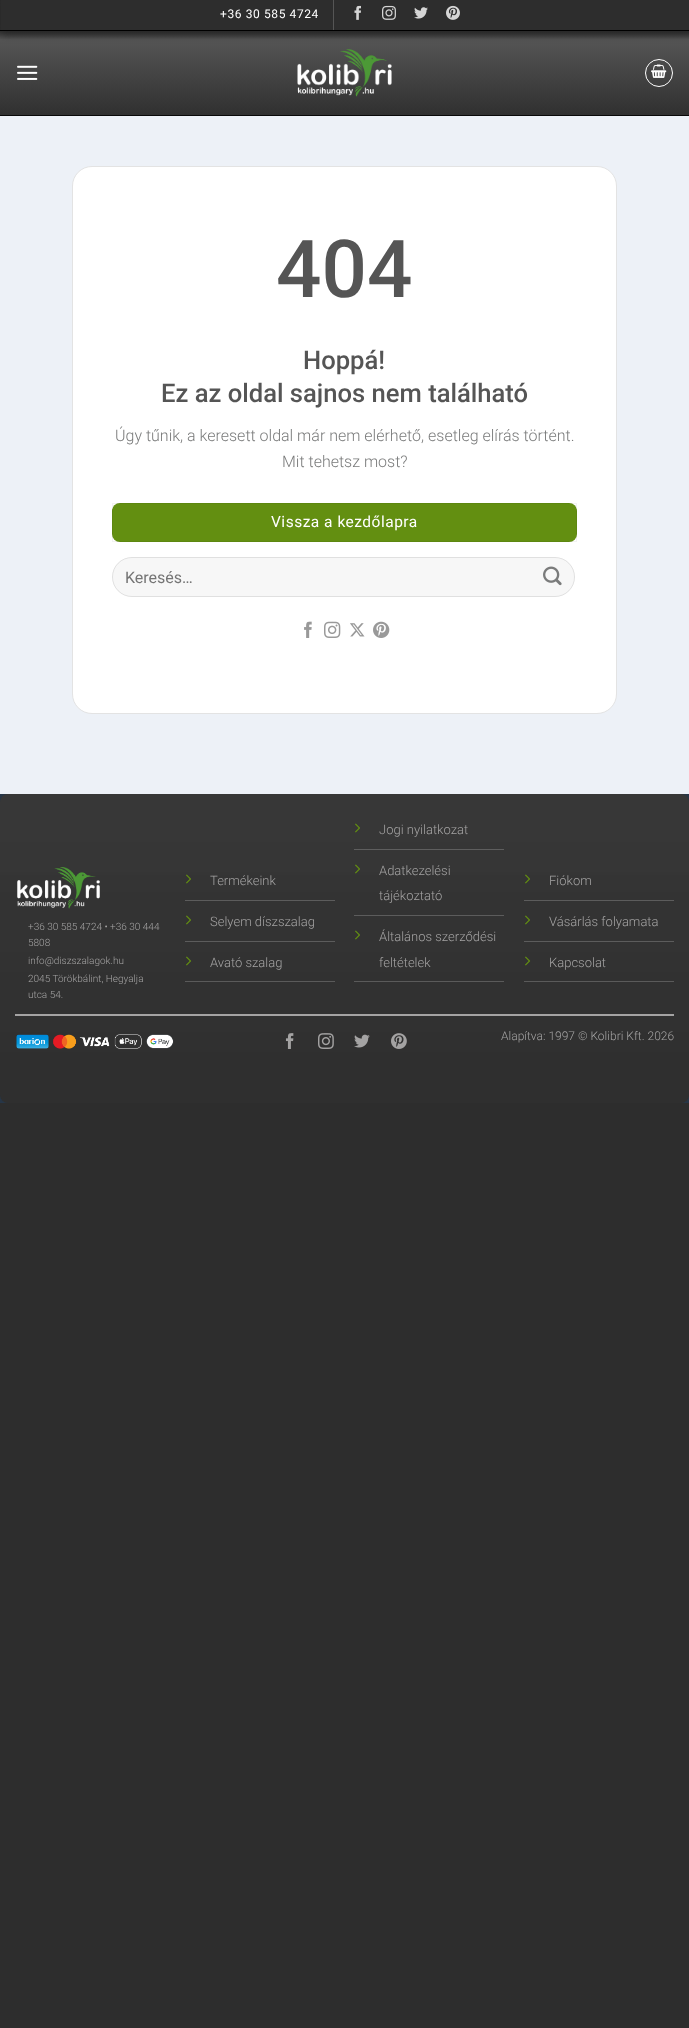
<svg xmlns="http://www.w3.org/2000/svg" width="689" height="2028" viewBox="0 0 689 2028">
  <style>
    .t1 { font: 12px Roboto; letter-spacing: 0.6px; fill: #fff; }
    .t2 { font: 500 80px Roboto; fill: #555; }
    .t3 { font: 500 25.6px Roboto; fill: #555; }
    .t4 { font: 300 16px Roboto; fill: #7a7b7b; }
    .t5 { font: 15.5px Roboto; letter-spacing: 0.5px; fill: #fff; }
    .t6 { font: 16px Roboto; fill: #757575; }
    .t7 { font: 300 10px Roboto; fill: #a4a3a3; }
    .t8 { font: 300 13px Roboto; fill: #a4a3a3; }
    .t9 { font: 300 12px Roboto; fill: #a4a3a3; }
  </style>
  <defs>
    <linearGradient id="g1" gradientUnits="userSpaceOnUse" x1="345" y1="31" x2="345" y2="115"><stop offset="0" stop-color="#303030"/><stop offset="0.1" stop-color="#555"/><stop offset="1" stop-color="#303030"/></linearGradient>
  </defs>
  <rect width="100%" height="100%" fill="#2d2d2d"/>
  <rect x="0" y="31" width="689" height="84" fill="url(#g1)"/>
  <rect x="2" y="-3" width="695" height="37" fill="#262626" filter="blur(4px)"/>
  <rect x="1" y="0" width="688" height="30" fill="#2d2d2d"/>
  <rect x="0" y="30" width="689" height="1" fill="#000"/>
  <text x="220" y="18" class="t1">+36 30 585 4724</text>
  <rect x="333" y="0" width="1" height="30" fill="#555"/>
  <image x="354" y="5" width="7" height="15" href="images/1.png"/>
  <image x="382" y="5" width="14" height="15" href="images/2.png"/>
  <image x="414" y="7" width="14" height="12" href="images/3.png"/>
  <image x="446" y="5" width="14" height="15" href="images/4.png"/>
  <rect x="0" y="115" width="689" height="1" fill="#090909"/>
  <image x="17" y="65" width="21" height="15" href="images/5.png"/>
  <image x="297" y="49" width="95" height="48" href="images/6.png"/>
  <circle cx="659" cy="73" r="13.5" fill="none" stroke="#fff"/>
  <image x="651" y="64" width="16" height="14" href="images/7.png"/>
  <rect x="0" y="116" width="689" height="678" fill="#edf1f7"/>
  <rect x="72.5" y="166.5" width="544" height="547" rx="19.5" fill="#fff" stroke="#e3e3e3"/>
  <text x="276" y="297" class="t2">404</text>
  <text x="303" y="369" class="t3">Hoppá!</text>
  <text x="161" y="402" class="t3">Ez az oldal sajnos nem található</text>
  <text x="115" y="441" class="t4">Úgy tűnik, a keresett oldal már nem elérhető, esetleg elírás történt.</text>
  <text x="282" y="467" class="t4">Mit tehetsz most?</text>
  <rect x="112" y="503" width="465" height="39" rx="8" fill="#638f11"/>
  <rect x="112.5" y="503.5" width="464" height="38" fill="none" stroke="#0000000d"/>
  <text x="271" y="527" class="t5">Vissza a kezdőlapra</text>
  <rect x="112" y="557" width="463" height="40" rx="20" fill="#f7f7f7"/>
  <rect x="112.5" y="557.5" width="462" height="39" rx="19.5" fill="none" stroke="#00000017"/>
  <text x="125" y="583" class="t6">Keresés…</text>
  <image x="543" y="566" width="19" height="20" href="images/8.png"/>
  <image x="304" y="621" width="8" height="17" href="images/9.png"/>
  <image x="324" y="621" width="17" height="17" href="images/10.png"/>
  <image x="350" y="623" width="15" height="14" href="images/11.png"/>
  <image x="373" y="621" width="17" height="17" href="images/12.png"/>
  <rect x="0" y="794" width="689" height="309" fill="#273647"/>
  <image x="0" y="794" width="689" height="309" href="images/13.png"/>
  <image x="17" y="867" width="83" height="42" href="images/14.png"/>
  <text x="28" y="930" class="t7">+36 30 585 4724 • +36 30 444</text>
  <text x="28" y="946" class="t7">5808</text>
  <text x="28" y="964" class="t7">info@diszszalagok.hu</text>
  <text x="28" y="982" class="t7">2045 Törökbálint, Hegyalja</text>
  <text x="28" y="998" class="t7">utca 54.</text>
  <rect x="185" y="900" width="150" height="1" fill="#5c5c5c"/>
  <image x="186" y="874" width="5" height="10" href="images/15.png"/>
  <text x="210" y="885" class="t8">Termékeink</text>
  <rect x="185" y="941" width="150" height="1" fill="#5c5c5c"/>
  <image x="186" y="915" width="5" height="10" href="images/16.png"/>
  <text x="210" y="926" class="t8">Selyem díszszalag</text>
  <rect x="185" y="981" width="150" height="1" fill="#5a5a5a"/>
  <image x="186" y="956" width="6" height="10" href="images/17.png"/>
  <text x="210" y="967" class="t8">Avató szalag</text>
  <rect x="354" y="849" width="150" height="1" fill="#5e5e5e"/>
  <image x="355" y="823" width="5" height="10" href="images/18.png"/>
  <text x="379" y="834" class="t8">Jogi nyilatkozat</text>
  <rect x="354" y="915" width="150" height="1" fill="#5c5c5c"/>
  <image x="355" y="864" width="5" height="10" href="images/19.png"/>
  <text x="379" y="875" class="t8">Adatkezelési</text>
  <text x="379" y="900" class="t8">tájékoztató</text>
  <rect x="354" y="981" width="150" height="1" fill="#5a5a5a"/>
  <image x="355" y="930" width="5" height="10" href="images/16.png"/>
  <text x="379" y="941" class="t8">Általános szerződési</text>
  <text x="379" y="967" class="t8">feltételek</text>
  <rect x="524" y="900" width="150" height="1" fill="#5c5c5c"/>
  <image x="525" y="874" width="5" height="10" href="images/15.png"/>
  <text x="549" y="885" class="t8">Fiókom</text>
  <rect x="524" y="941" width="150" height="1" fill="#5c5c5c"/>
  <image x="525" y="915" width="5" height="10" href="images/16.png"/>
  <text x="549" y="926" class="t8">Vásárlás folyamata</text>
  <rect x="524" y="981" width="150" height="1" fill="#5a5a5a"/>
  <image x="525" y="956" width="6" height="10" href="images/17.png"/>
  <text x="549" y="967" class="t8">Kapcsolat</text>
  <rect x="15" y="1014" width="659" height="2" fill="#a4a3a3"/>
  <image x="16" y="1034" width="158" height="15" href="images/20.png"/>
  <image x="285" y="1033" width="9" height="16" href="images/21.png"/>
  <image x="318" y="1033" width="16" height="16" href="images/22.png"/>
  <image x="354" y="1034" width="16" height="14" href="images/23.png"/>
  <image x="391" y="1033" width="16" height="16" href="images/24.png"/>
  <text x="501" y="1040" class="t9">Alapítva: 1997 © Kolibri Kft. 2026</text>
</svg>
